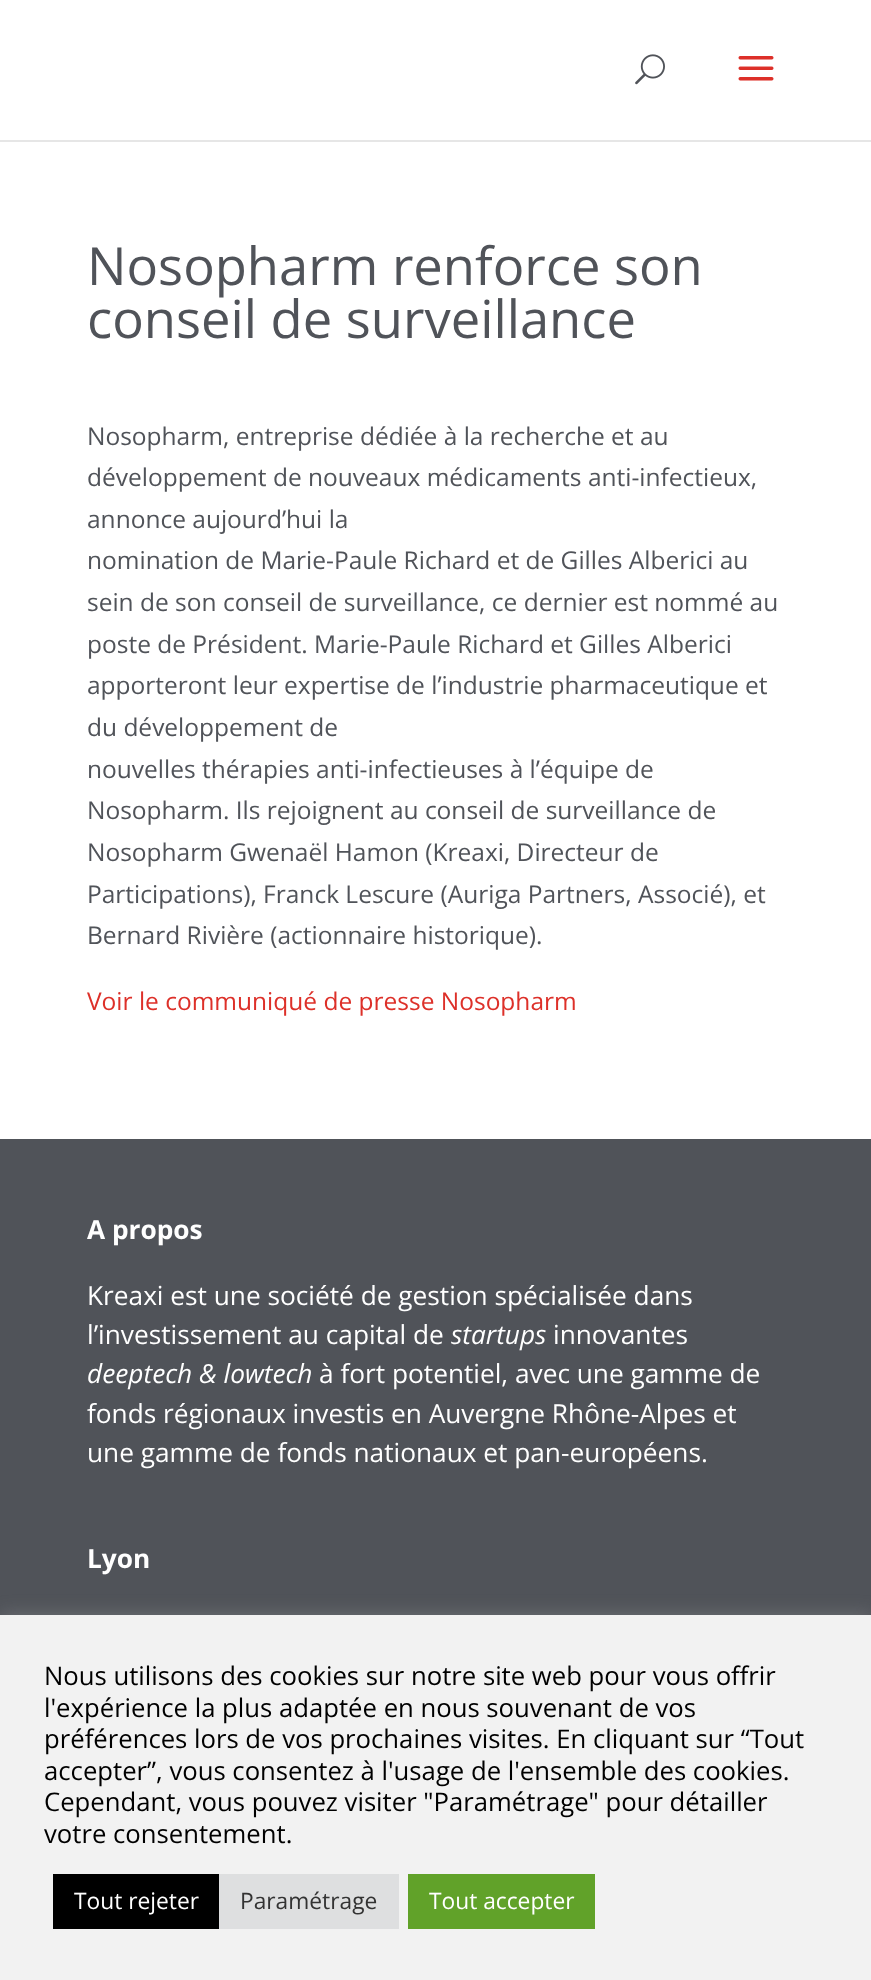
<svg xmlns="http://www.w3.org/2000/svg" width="871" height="1980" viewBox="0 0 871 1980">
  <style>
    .t1 { font: 52.5px Open Sans; fill: #505359; }
    .t2 { font: 24.5px Open Sans; fill: #505359; }
    .t3 { font: 24.5px Open Sans; fill: #dd3029; }
    .t4 { font: bold 26.25px Open Sans; fill: #fff; }
    .t5 { font: 26.25px Open Sans; fill: #fff; }
    .t6 { font: italic 26.25px Open Sans; fill: #fff; }
    .t7 { font: 25.7px Open Sans; fill: #000; }
    .t8 { font: 22.75px Open Sans; fill: #fff; }
    .t9 { font: 22.75px Open Sans; fill: #333; }
  </style>
  <rect width="100%" height="100%" fill="#fff"/>
  <path d="M0 140V142H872V2V140Z" fill="#e6e6e6"/>
  <image x="635" y="54" width="30" height="31" href="images/1.png"/>
  <image x="738" y="56" width="36" height="25" href="images/2.png"/>
  <text x="87" y="285" class="t1">Nosopharm renforce son</text>
  <text x="87" y="338" class="t1">conseil de surveillance</text>
  <text x="87" y="445" class="t2">Nosopharm, entreprise dédiée à la recherche et au</text>
  <text x="87" y="486" class="t2">développement de nouveaux médicaments anti-infectieux,</text>
  <text x="87" y="528" class="t2">annonce aujourd’hui la</text>
  <text x="87" y="569" class="t2">nomination de Marie-Paule Richard et de Gilles Alberici au</text>
  <text x="87" y="611" class="t2">sein de son conseil de surveillance, ce dernier est nommé au</text>
  <text x="87" y="653" class="t2">poste de Président. Marie-Paule Richard et Gilles Alberici</text>
  <text x="87" y="694" class="t2">apporteront leur expertise de l’industrie pharmaceutique et</text>
  <text x="87" y="736" class="t2">du développement de</text>
  <text x="87" y="778" class="t2">nouvelles thérapies anti-infectieuses à l’équipe de</text>
  <text x="87" y="819" class="t2">Nosopharm. Ils rejoignent au conseil de surveillance de</text>
  <text x="87" y="861" class="t2">Nosopharm Gwenaël Hamon (Kreaxi, Directeur de</text>
  <text x="87" y="903" class="t2">Participations), Franck Lescure (Auriga Partners, Associé), et</text>
  <text x="87" y="944" class="t2">Bernard Rivière (actionnaire historique).</text>
  <text x="87" y="1010" class="t3">Voir le communiqué de presse Nosopharm</text>
  <rect x="0" y="1139" width="871" height="476" fill="#505359"/>
  <text x="87" y="1239" class="t4">A propos</text>
  <text x="87" y="1305" class="t5">Kreaxi est une société de gestion spécialisée dans</text>
  <text x="87" y="1344" class="t5">l’investissement au capital de</text>
  <text x="451" y="1344" class="t6">startups</text>
  <text x="553" y="1344" class="t5">innovantes</text>
  <text x="87" y="1383" class="t6">deeptech &amp; lowtech</text>
  <text x="319" y="1383" class="t5">à fort potentiel, avec une gamme de</text>
  <text x="87" y="1423" class="t5">fonds régionaux investis en Auvergne Rhône-Alpes et</text>
  <text x="87" y="1462" class="t5">une gamme de fonds nationaux et pan-européens.</text>
  <text x="87" y="1568" class="t4">Lyon</text>
  <rect x="0" y="1614" width="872" height="365" fill="#acabab4d" filter="blur(9px)"/>
  <rect x="0" y="1615" width="871" height="365" fill="#f2f2f2"/>
  <text x="44" y="1685" class="t7">Nous utilisons des cookies sur notre site web pour vous offrir</text>
  <text x="44" y="1717" class="t7">l'expérience la plus adaptée en nous souvenant de vos</text>
  <text x="44" y="1748" class="t7">préférences lors de vos prochaines visites. En cliquant sur “Tout</text>
  <text x="44" y="1780" class="t7">accepter”, vous consentez à l'usage de l'ensemble des cookies.</text>
  <text x="44" y="1811" class="t7">Cependant, vous pouvez visiter "Paramétrage" pour détailler</text>
  <text x="44" y="1843" class="t7">votre consentement.</text>
  <rect x="53" y="1874" width="166" height="55" fill="#000"/>
  <text x="74" y="1909" class="t8">Tout rejeter</text>
  <rect x="219" y="1874" width="180" height="55" fill="#dedfe0"/>
  <text x="240" y="1909" class="t9">Paramétrage</text>
  <rect x="408" y="1874" width="187" height="55" fill="#61a229"/>
  <text x="429" y="1909" class="t8">Tout accepter</text>
</svg>
